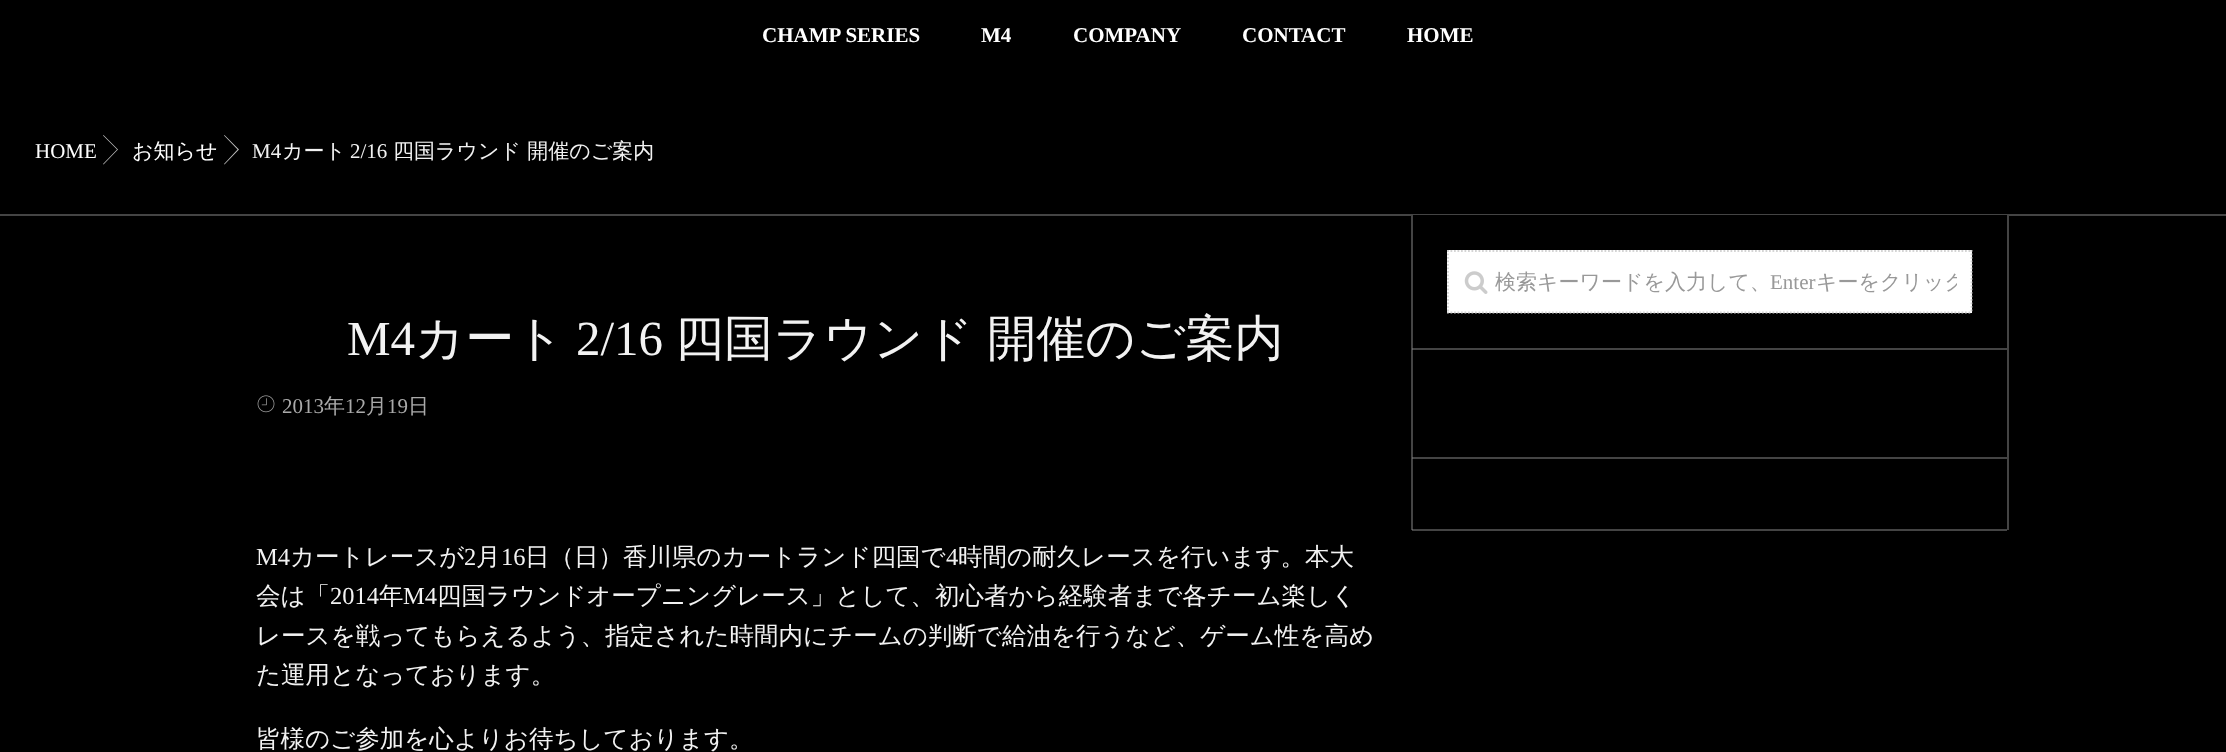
<svg xmlns="http://www.w3.org/2000/svg" width="2226" height="752" viewBox="0 0 2226 752">
  <style>
    .t1 { font: bold 21px Liberation Serif; fill: #fff; }
    .t2 { font: 21px Liberation Serif; fill: #fff; }
    .t3 { font: 500 21px WenQuanYi Zen Hei; fill: #fff; }
    .t4 { font: 21px Liberation Serif; fill: #f2f2f2; }
    .t5 { font: 500 21px WenQuanYi Zen Hei; fill: #f2f2f2; }
    .t6 { font: 500 21px WenQuanYi Zen Hei; fill: #999; }
    .t7 { font: 21px Liberation Serif; fill: #999; }
    .t8 { font: 49px Liberation Serif; fill: #f2f2f2; }
    .t9 { font: 500 49px WenQuanYi Zen Hei; fill: #f2f2f2; }
    .t10 { font: 21px Liberation Serif; fill: #aaa; }
    .t11 { font: 500 21px WenQuanYi Zen Hei; fill: #aaa; }
    .t12 { font: 24.5px Liberation Serif; fill: #f2f2f2; }
    .t13 { font: 500 24.5px WenQuanYi Zen Hei; fill: #f2f2f2; }
  </style>
  <defs>
    <clipPath id="clip1"><rect x="1495" y="264" width="462" height="35"/></clipPath>
  </defs>
  <rect width="100%" height="100%" fill="#000"/>
  <rect x="1412" y="529" width="595" height="2" fill="#444"/>
  <text x="762" y="42" class="t1">CHAMP SERIES</text>
  <text x="981" y="42" class="t1">M4</text>
  <text x="1073" y="42" class="t1">COMPANY</text>
  <text x="1242" y="42" class="t1">CONTACT</text>
  <text x="1407" y="42" class="t1">HOME</text>
  <rect x="0" y="214" width="2226" height="2" fill="#444"/>
  <text x="35" y="158" class="t2">HOME</text>
  <path d="M103 135.5L117 149.5L103 164L103.5 164.5L118 149.5L103.5 135Z" fill="#bcbcbc"/>
  <text x="132" y="158" class="t3">お知らせ</text>
  <path d="M224 135.5L237.5 149.5L224 164L224.5 164.5L239 149.5L224.5 135Z" fill="#bcbcbc"/>
  <text x="252" y="158" class="t4">M4</text>
  <text x="282" y="158" class="t5">カート</text>
  <text x="350" y="158" class="t4">2/16</text>
  <text x="393" y="158" class="t5">四国ラウンド 開催のご案内</text>
  <rect x="1413" y="215" width="594" height="1" fill="#000"/>
  <rect x="1412" y="457" width="595" height="2" fill="#444"/>
  <rect x="1412" y="348" width="595" height="2" fill="#444"/>
  <rect x="2007" y="215" width="2" height="315" fill="#444"/>
  <rect x="1411" y="215" width="2" height="315" fill="#444"/>
  <rect x="1412" y="529" width="1" height="1" fill="#666"/>
  <rect x="1412" y="457" width="1" height="2" fill="#666"/>
  <rect x="1412" y="348" width="1" height="2" fill="#666"/>
  <rect x="1447" y="250" width="525" height="63" fill="#fff"/>
  <image x="1464" y="271" width="24" height="23" href="images/1.png"/>
  <path d="M1447 251H1972" fill="none" stroke="#d4d4d4" stroke-width="1.8" stroke-dasharray="1.75 1.75"/>
  <path d="M1971.5 250V313" fill="none" stroke="#d4d4d4" stroke-width="1.8" stroke-dasharray="1.75 1.75"/>
  <path d="M1447 312.5H1972" fill="none" stroke="#d4d4d4" stroke-width="1.8" stroke-dasharray="1.75 1.75"/>
  <path d="M1448 250V313" fill="none" stroke="#d4d4d4" stroke-width="1.8" stroke-dasharray="1.75 1.75"/>
  <text x="1495" y="289" class="t6">検索キーワードを入力して、</text>
  <text x="1770" y="289" class="t7">Enter</text>
  <g clip-path="url(#clip1)">
    <text x="1816" y="289" class="t6">キーをクリック</text>
  </g>
  <text x="347" y="355" class="t8">M4</text>
  <text x="415" y="355" class="t9">カート</text>
  <text x="576" y="355" class="t8">2/16</text>
  <text x="675" y="355" word-spacing="-1" class="t9">四国ラウンド 開催のご案内</text>
  <image x="257" y="395" width="18" height="18" href="images/2.png"/>
  <text x="282" y="413" class="t10">2013</text>
  <text x="324" y="413" class="t11">年</text>
  <text x="345" y="413" class="t10">12</text>
  <text x="366" y="413" class="t11">月</text>
  <text x="387" y="413" class="t10">19</text>
  <text x="408" y="413" class="t11">日</text>
  <text x="256" y="565" class="t12">M4</text>
  <text x="290" y="565" class="t13">カートレースが</text>
  <text x="464" y="565" class="t12">2</text>
  <text x="476" y="565" class="t13">月</text>
  <text x="501" y="565" class="t12">16</text>
  <text x="525" y="565" class="t13">日（日）香川県のカートランド四国で</text>
  <text x="946" y="565" class="t12">4</text>
  <text x="958" y="565" class="t13">時間の耐久レースを行います。本大</text>
  <text x="256" y="604" class="t13">会は「</text>
  <text x="330" y="604" class="t12">2014</text>
  <text x="379" y="604" class="t13">年</text>
  <text x="403" y="604" class="t12">M4</text>
  <text x="437" y="604" class="t13">四国ラウンドオープニングレース」として、初心者から経験者まで各チーム楽しく</text>
  <text x="256" y="644" class="t13">レースを戦ってもらえるよう、指定された時間内にチームの判断で給油を行うなど、ゲーム性を高め</text>
  <text x="256" y="683" class="t13">た運用となっております。</text>
  <text x="256" y="747" class="t13">皆様のご参加を心よりお待ちしております。</text>
</svg>
